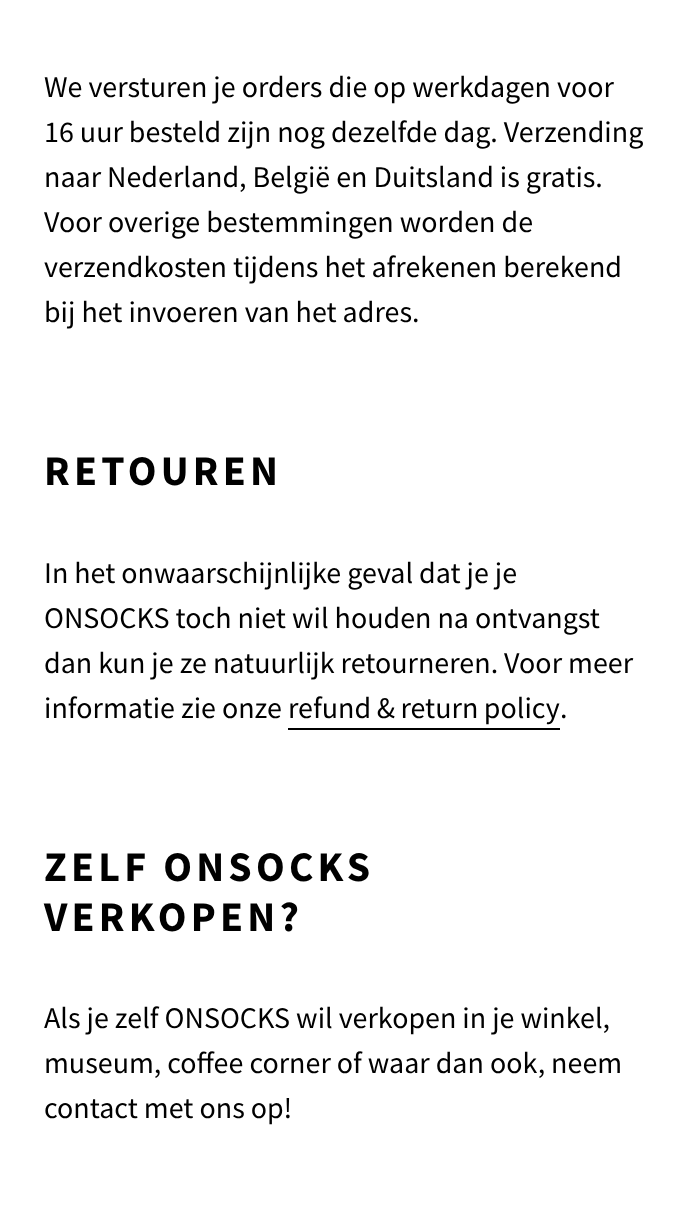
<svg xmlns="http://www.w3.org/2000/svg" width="688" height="1218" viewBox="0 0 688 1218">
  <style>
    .t1 { font: 30px Source Sans Pro; fill: #000; }
    .t2 { font: bold 42px Source Sans Pro; letter-spacing: 4.25px; fill: #000; }
  </style>
  <rect width="100%" height="100%" fill="#fff"/>
  <text x="44" y="97" class="t1">We versturen je orders die op werkdagen voor</text>
  <text x="44" y="142" class="t1">16 uur besteld zijn nog dezelfde dag. Verzending</text>
  <text x="44" y="187" class="t1">naar Nederland, België en Duitsland is gratis.</text>
  <text x="44" y="232" class="t1">Voor overige bestemmingen worden de</text>
  <text x="44" y="277" class="t1">verzendkosten tijdens het afrekenen berekend</text>
  <text x="44" y="322" class="t1">bij het invoeren van het adres.</text>
  <text x="44" y="485" class="t2">RETOUREN</text>
  <text x="44" y="583" class="t1">In het onwaarschijnlijke geval dat je je</text>
  <text x="44" y="628" class="t1">ONSOCKS toch niet wil houden na ontvangst</text>
  <text x="44" y="673" class="t1">dan kun je ze natuurlijk retourneren. Voor meer</text>
  <text x="44" y="718" class="t1">informatie zie onze</text>
  <text x="288" y="718" word-spacing="-0.5" class="t1">refund &amp; return policy</text>
  <rect x="288" y="728" width="272" height="2" fill="#000"/>
  <text x="560" y="718" class="t1">.</text>
  <text x="44" y="881" class="t2">ZELF ONSOCKS</text>
  <text x="44" y="931" class="t2">VERKOPEN?</text>
  <text x="44" y="1028" class="t1">Als je zelf ONSOCKS wil verkopen in je winkel,</text>
  <text x="44" y="1073" class="t1">museum, coffee corner of waar dan ook, neem</text>
  <text x="44" y="1118" class="t1">contact met ons op!</text>
</svg>
